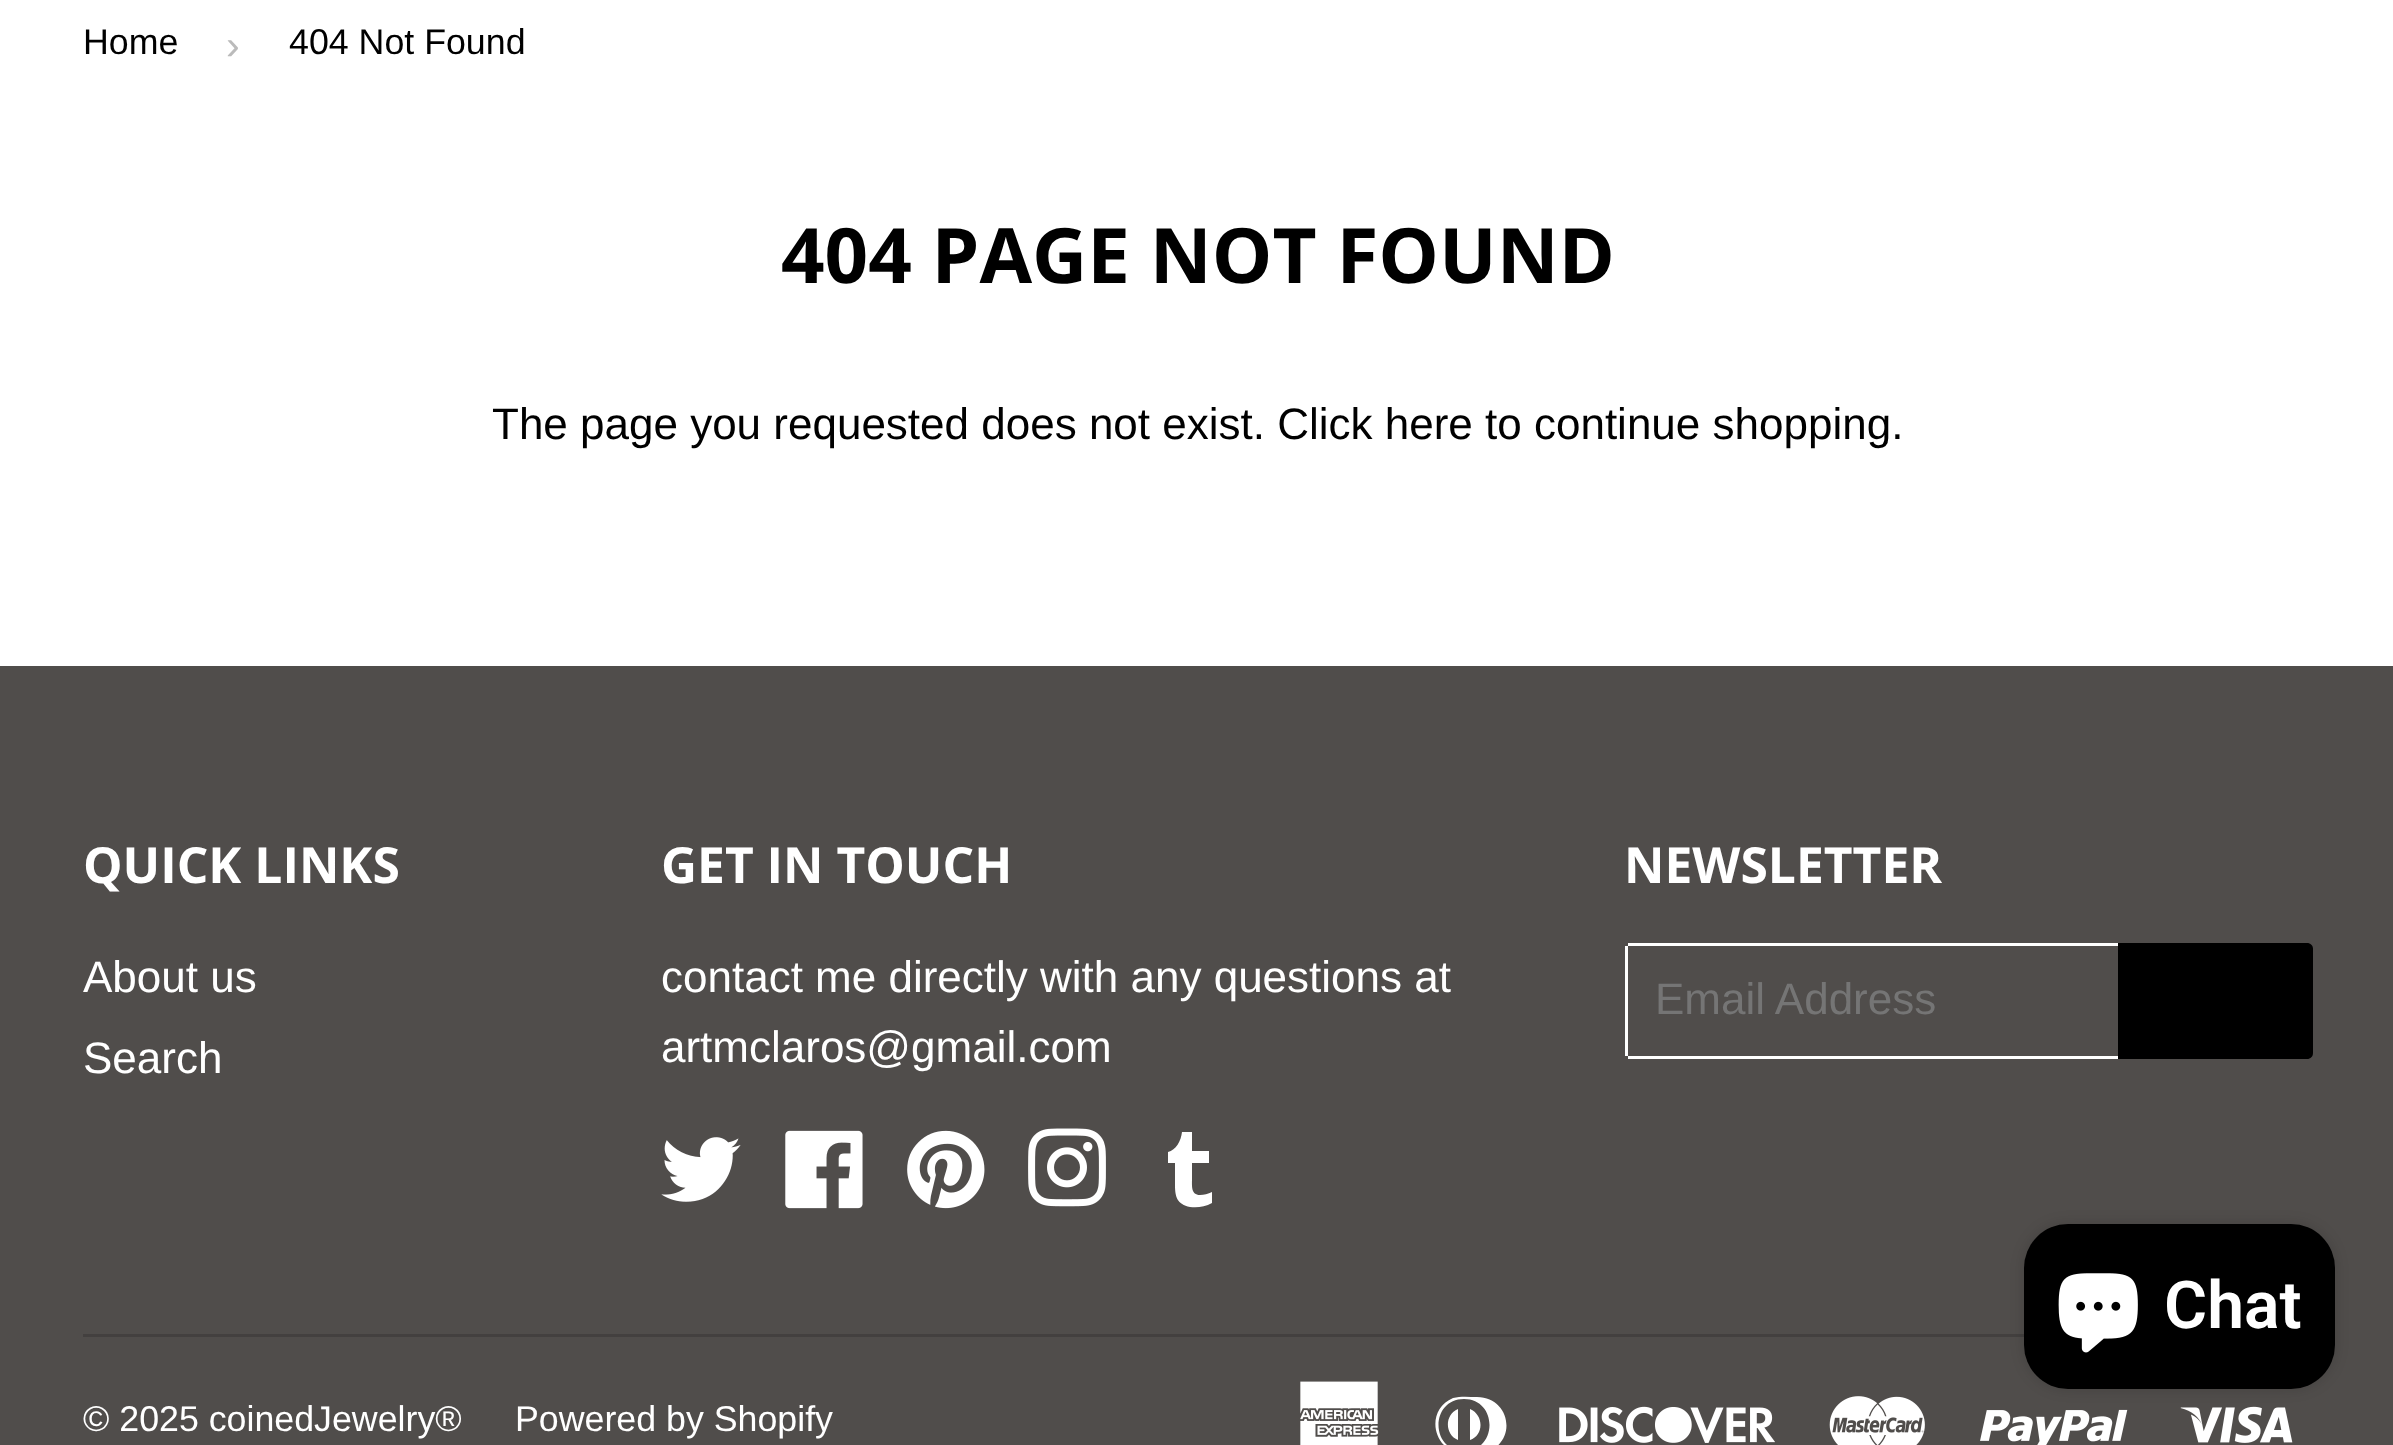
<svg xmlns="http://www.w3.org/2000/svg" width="2393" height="1445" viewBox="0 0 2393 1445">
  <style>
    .t1 { font: 35.75px Liberation Sans; fill: #000; }
    .t2 { font: 41px Liberation Sans; fill: #bbb; }
    .t3 { font: bold 76.25px Open Sans; fill: #000; }
    .t4 { font: 44px Liberation Sans; fill: #000; }
    .t5 { font: bold 49.75px Open Sans; fill: #fff; }
    .t6 { font: 44px Liberation Sans; fill: #fff; }
    .t7 { font: 44px Liberation Sans; fill: #757575; }
    .t8 { font: 35.75px Liberation Sans; fill: #fff; }
    .t9 { font: 600 66px Roboto; fill: #fff; }
  </style>
  <rect width="100%" height="100%" fill="#fff"/>
  <text x="83" y="54" class="t1">Home</text>
  <text x="226" y="59" class="t2">›</text>
  <text x="289" y="54" class="t1">404 Not Found</text>
  <text x="781" y="283" class="t3">404 PAGE NOT FOUND</text>
  <text x="492" y="439" class="t4">The page you requested does not exist. Click here to continue shopping.</text>
  <rect x="0" y="666" width="2393" height="779" fill="#504d4b"/>
  <text x="83" y="883" class="t5">QUICK LINKS</text>
  <text x="83" y="992" class="t6">About us</text>
  <text x="83" y="1073" class="t6">Search</text>
  <text x="661" y="883" class="t5">GET IN TOUCH</text>
  <text x="661" y="992" class="t6">contact me directly with any questions at</text>
  <text x="661" y="1062" class="t6">artmclaros@gmail.com</text>
  <image x="661" y="1137" width="80" height="65" href="images/1.png"/>
  <image x="785" y="1130" width="78" height="79" href="images/2.png"/>
  <image x="907" y="1130" width="78" height="79" href="images/3.png"/>
  <image x="1028" y="1128" width="78" height="79" href="images/4.png"/>
  <path d="M1168 1163H1175V1185C1175 1197 1177 1204 1190 1207C1197 1208 1205 1207 1212 1203V1192C1208 1194 1204 1195 1200 1195C1191 1195 1192 1186 1192 1179V1163H1209V1151H1192V1132H1182C1181 1141 1176 1150 1168 1152Z" fill="#fff"/>
  <text x="1624" y="883" class="t5">NEWSLETTER</text>
  <rect x="1628" y="943" width="490" height="3" fill="#fff"/>
  <rect x="1628" y="1056" width="490" height="3" fill="#fff"/>
  <rect x="1625" y="946" width="3" height="110" fill="#fff"/>
  <text x="1655" y="1014" class="t7">Email Address</text>
  <path d="M2118 943H2307C2310.5 943 2313 945.5 2313 949V1053C2313 1056.5 2310.5 1059 2307 1059H2118Z" fill="#000"/>
  <rect x="83" y="1334" width="1941" height="3" fill="#43403f"/>
  <text x="83" y="1431" class="t8">© 2025 coinedJewelry®</text>
  <text x="515" y="1431" class="t8">Powered by Shopify</text>
  <image x="1300" y="1381" width="79" height="64" href="images/5.png"/>
  <path d="M1477 1397C1510 1397 1518 1441 1487 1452C1480 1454 1471 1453 1464 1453C1433 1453 1424 1410 1453 1398C1461 1396 1469 1397 1477 1397ZM1464 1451C1498 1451 1498 1399 1464 1399C1430 1399 1430 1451 1464 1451ZM1458 1440C1445 1435 1444 1415 1458 1409ZM1470 1409C1484 1415 1484 1435 1470 1440Z" fill="#fff"/>
  <image x="1559" y="1406" width="216" height="37" href="images/6.png"/>
  <image x="1829" y="1396" width="96" height="49" href="images/7.png"/>
  <image x="1980" y="1409" width="148" height="36" href="images/8.png"/>
  <image x="2180" y="1406" width="113" height="37" href="images/9.png"/>
  <rect x="2024" y="1224" width="311" height="165" rx="44" fill="#00000026" filter="blur(7px)"/>
  <rect x="2024" y="1224" width="311" height="165" rx="44" fill="#000"/>
  <image x="2058" y="1273" width="80" height="80" href="images/10.png"/>
  <text x="2164" y="1328" class="t9">Chat</text>
</svg>
